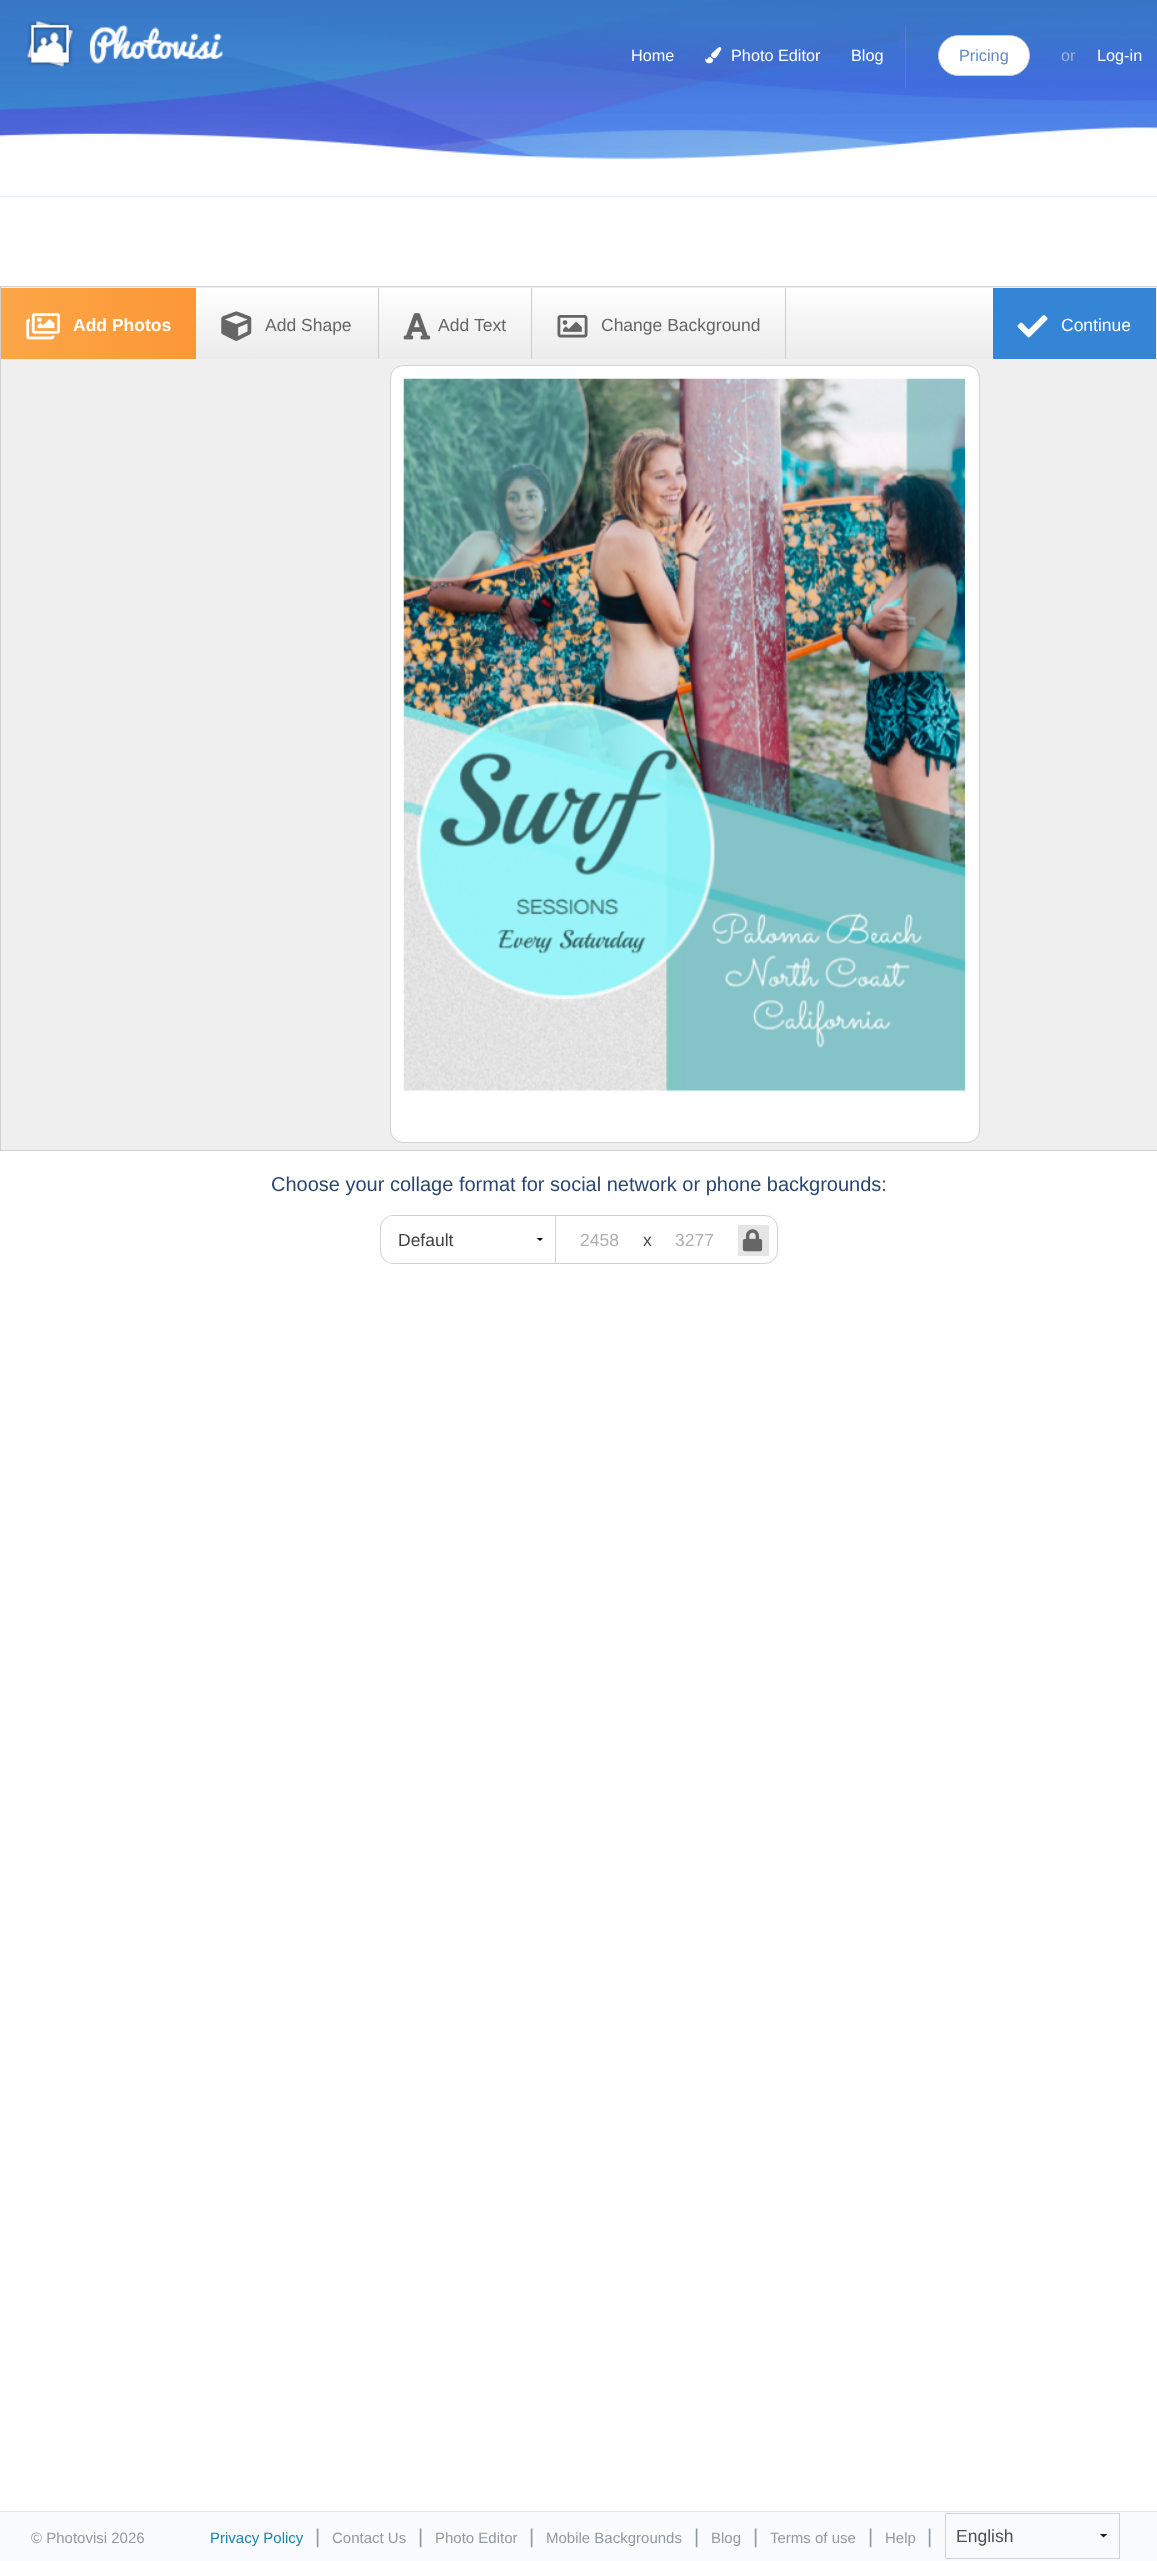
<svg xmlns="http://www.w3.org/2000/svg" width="1157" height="2561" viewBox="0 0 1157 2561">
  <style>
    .t1 { font: 16.25px Liberation Sans; fill: #fff; }
    .t2 { font: 16.25px Liberation Sans; fill: #638abd; }
    .t3 { font: 16.25px Liberation Sans; fill: #9db6d2; }
    .t4 { font: bold 17.5px Liberation Sans; fill: #fff; }
    .t5 { font: 17.5px Liberation Sans; fill: #666; }
    .t6 { font: 17.5px Liberation Sans; fill: #fff; }
    .t7 { font: 20px Liberation Sans; fill: #2b476f; }
    .t8 { font: 17.5px Liberation Sans; fill: #404040; }
    .t9 { font: 17.5px Liberation Sans; fill: #b0b0b0; }
    .t10 { font: 17.5px Liberation Sans; fill: #4d4d4d; }
    .t11 { font: 15px Liberation Sans; fill: #9399a1; }
    .t12 { font: 15px Liberation Sans; fill: #1985a9; }
    .t13 { font: 20px Liberation Sans; fill: #9399a1; }
  </style>
  <defs>
    <linearGradient id="g1" gradientUnits="userSpaceOnUse" x1="579" y1="287" x2="579" y2="359"><stop offset="0" stop-color="#fff"/><stop offset="0.47" stop-color="#f5f5f5"/><stop offset="1" stop-color="#ececec"/></linearGradient>
    <linearGradient id="g2" gradientUnits="userSpaceOnUse" x1="1.2" y1="323" x2="196" y2="323"><stop offset="0" stop-color="#fca647"/><stop offset="1" stop-color="#fc9736"/></linearGradient>
    <linearGradient id="g3" gradientUnits="userSpaceOnUse" x1="287" y1="288" x2="287" y2="359"><stop offset="0" stop-color="#fff"/><stop offset="0.47" stop-color="#f5f5f5"/><stop offset="1" stop-color="#ececec"/></linearGradient>
    <linearGradient id="g4" gradientUnits="userSpaceOnUse" x1="455" y1="288" x2="455" y2="359"><stop offset="0" stop-color="#fff"/><stop offset="0.47" stop-color="#f5f5f5"/><stop offset="1" stop-color="#ececec"/></linearGradient>
    <linearGradient id="g5" gradientUnits="userSpaceOnUse" x1="659" y1="288" x2="659" y2="359"><stop offset="0" stop-color="#fff"/><stop offset="0.47" stop-color="#f5f5f5"/><stop offset="1" stop-color="#ececec"/></linearGradient>
    <clipPath id="clip1"><rect x="381" y="1216" width="395" height="47" rx="11"/></clipPath>
    <clipPath id="clip2"><rect x="525" y="1238" width="30" height="4"/></clipPath>
  </defs>
  <rect width="100%" height="100%" fill="#fff"/>
  <rect x="0" y="2512" width="1157" height="49" fill="#f9fbfc"/>
  <image x="0" y="0" width="1157" height="197" href="images/1.png"/>
  <image x="26" y="20" width="197" height="48" href="images/2.png"/>
  <text x="631" y="61" class="t1">Home</text>
  <image x="705" y="47" width="17" height="17" href="images/3.png"/>
  <text x="731" y="61" class="t1">Photo Editor</text>
  <text x="851" y="61" class="t1">Blog</text>
  <rect x="905" y="25" width="1" height="63" fill="#5680bc"/>
  <rect x="938.5" y="35.5" width="91" height="40" rx="20" fill="#fff" stroke="#ccc"/>
  <text x="959" y="61" class="t2">Pricing</text>
  <text x="1061" y="61" class="t3">or</text>
  <text x="1097" y="61" class="t1">Log-in</text>
  <rect x="0.5" y="286.5" width="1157" height="864" fill="#efefef" stroke="#d1d1d1"/>
  <rect x="786" y="288" width="207" height="71" fill="url(#g1)"/>
  <rect x="1" y="288" width="195" height="71" fill="url(#g2)"/>
  <image x="26" y="313" width="34" height="27" href="images/4.png"/>
  <text x="73" y="331" class="t4">Add Photos</text>
  <rect x="196" y="288" width="182" height="71" fill="url(#g3)"/>
  <rect x="378" y="288" width="1" height="71" fill="#ccc"/>
  <image x="221" y="311" width="31" height="30" href="images/5.png"/>
  <text x="265" y="331" class="t5">Add Shape</text>
  <rect x="379" y="288" width="154" height="71" fill="url(#g4)"/>
  <rect x="531" y="288" width="1" height="71" fill="#ccc"/>
  <image x="403" y="313" width="27" height="27" href="images/6.png"/>
  <text x="438" y="331" class="t5">Add</text>
  <text x="474" y="331" class="t5">Text</text>
  <rect x="533" y="288" width="252" height="71" fill="url(#g5)"/>
  <rect x="785" y="288" width="1" height="71" fill="#ccc"/>
  <image x="557" y="315" width="31" height="23" href="images/7.png"/>
  <text x="601" y="331" class="t5">Change Background</text>
  <rect x="993" y="288" width="163" height="71" fill="#3585d7"/>
  <image x="1017" y="315" width="31" height="23" href="images/8.png"/>
  <text x="1061" y="331" class="t6">Continue</text>
  <rect x="390.5" y="365.5" width="589" height="777" rx="12.5" fill="#fff" stroke="#d1d1d1"/>
  <image x="403" y="378" width="562" height="714" href="images/9.png"/>
  <text x="271" y="1191" class="t7">Choose your collage format for social network or phone backgrounds:</text>
  <rect x="380.5" y="1215.5" width="397" height="48" rx="12.5" fill="none" stroke="#d1d1d1"/>
  <g clip-path="url(#clip1)">
    <rect x="388" y="1216" width="167" height="47" fill="#fefefe"/>
  </g>
  <g clip-path="url(#clip2)">
    <path d="M543.5 1237.5L540 1241L536 1237.5Z" fill="#000"/>
  </g>
  <rect x="555" y="1216" width="1" height="47" fill="#d1d1d1"/>
  <text x="398" y="1246" class="t8">Default</text>
  <text x="580" y="1246" class="t9">2458</text>
  <text x="643" y="1246" class="t10">x</text>
  <text x="675" y="1246" class="t9">3277</text>
  <rect x="738" y="1225" width="31" height="31" fill="#e5e5e5"/>
  <image x="742" y="1229" width="21" height="23" href="images/10.png"/>
  <rect x="0" y="2511" width="1157" height="1" fill="#e0e9f2"/>
  <text x="31" y="2543" class="t11">© Photovisi 2026</text>
  <text x="210" y="2543" class="t12">Privacy Policy</text>
  <text x="315" y="2543" class="t13">|</text>
  <text x="332" y="2543" class="t11">Contact Us</text>
  <text x="418" y="2543" class="t13">|</text>
  <text x="435" y="2543" class="t11">Photo Editor</text>
  <text x="529" y="2543" class="t13">|</text>
  <text x="546" y="2543" class="t11">Mobile Backgrounds</text>
  <text x="694" y="2543" class="t13">|</text>
  <text x="711" y="2543" class="t11">Blog</text>
  <text x="753" y="2543" class="t13">|</text>
  <text x="770" y="2543" class="t11">Terms of use</text>
  <text x="868" y="2543" class="t13">|</text>
  <text x="885" y="2543" class="t11">Help</text>
  <text x="927" y="2543" class="t13">|</text>
  <path d="M1107.5 2534L1103.5 2537.5L1100 2534Z" fill="#1a1a1a"/>
  <rect x="945.5" y="2513.5" width="174" height="45" fill="none" stroke="#d1d1d1"/>
  <text x="956" y="2542" class="t10">English</text>
</svg>
